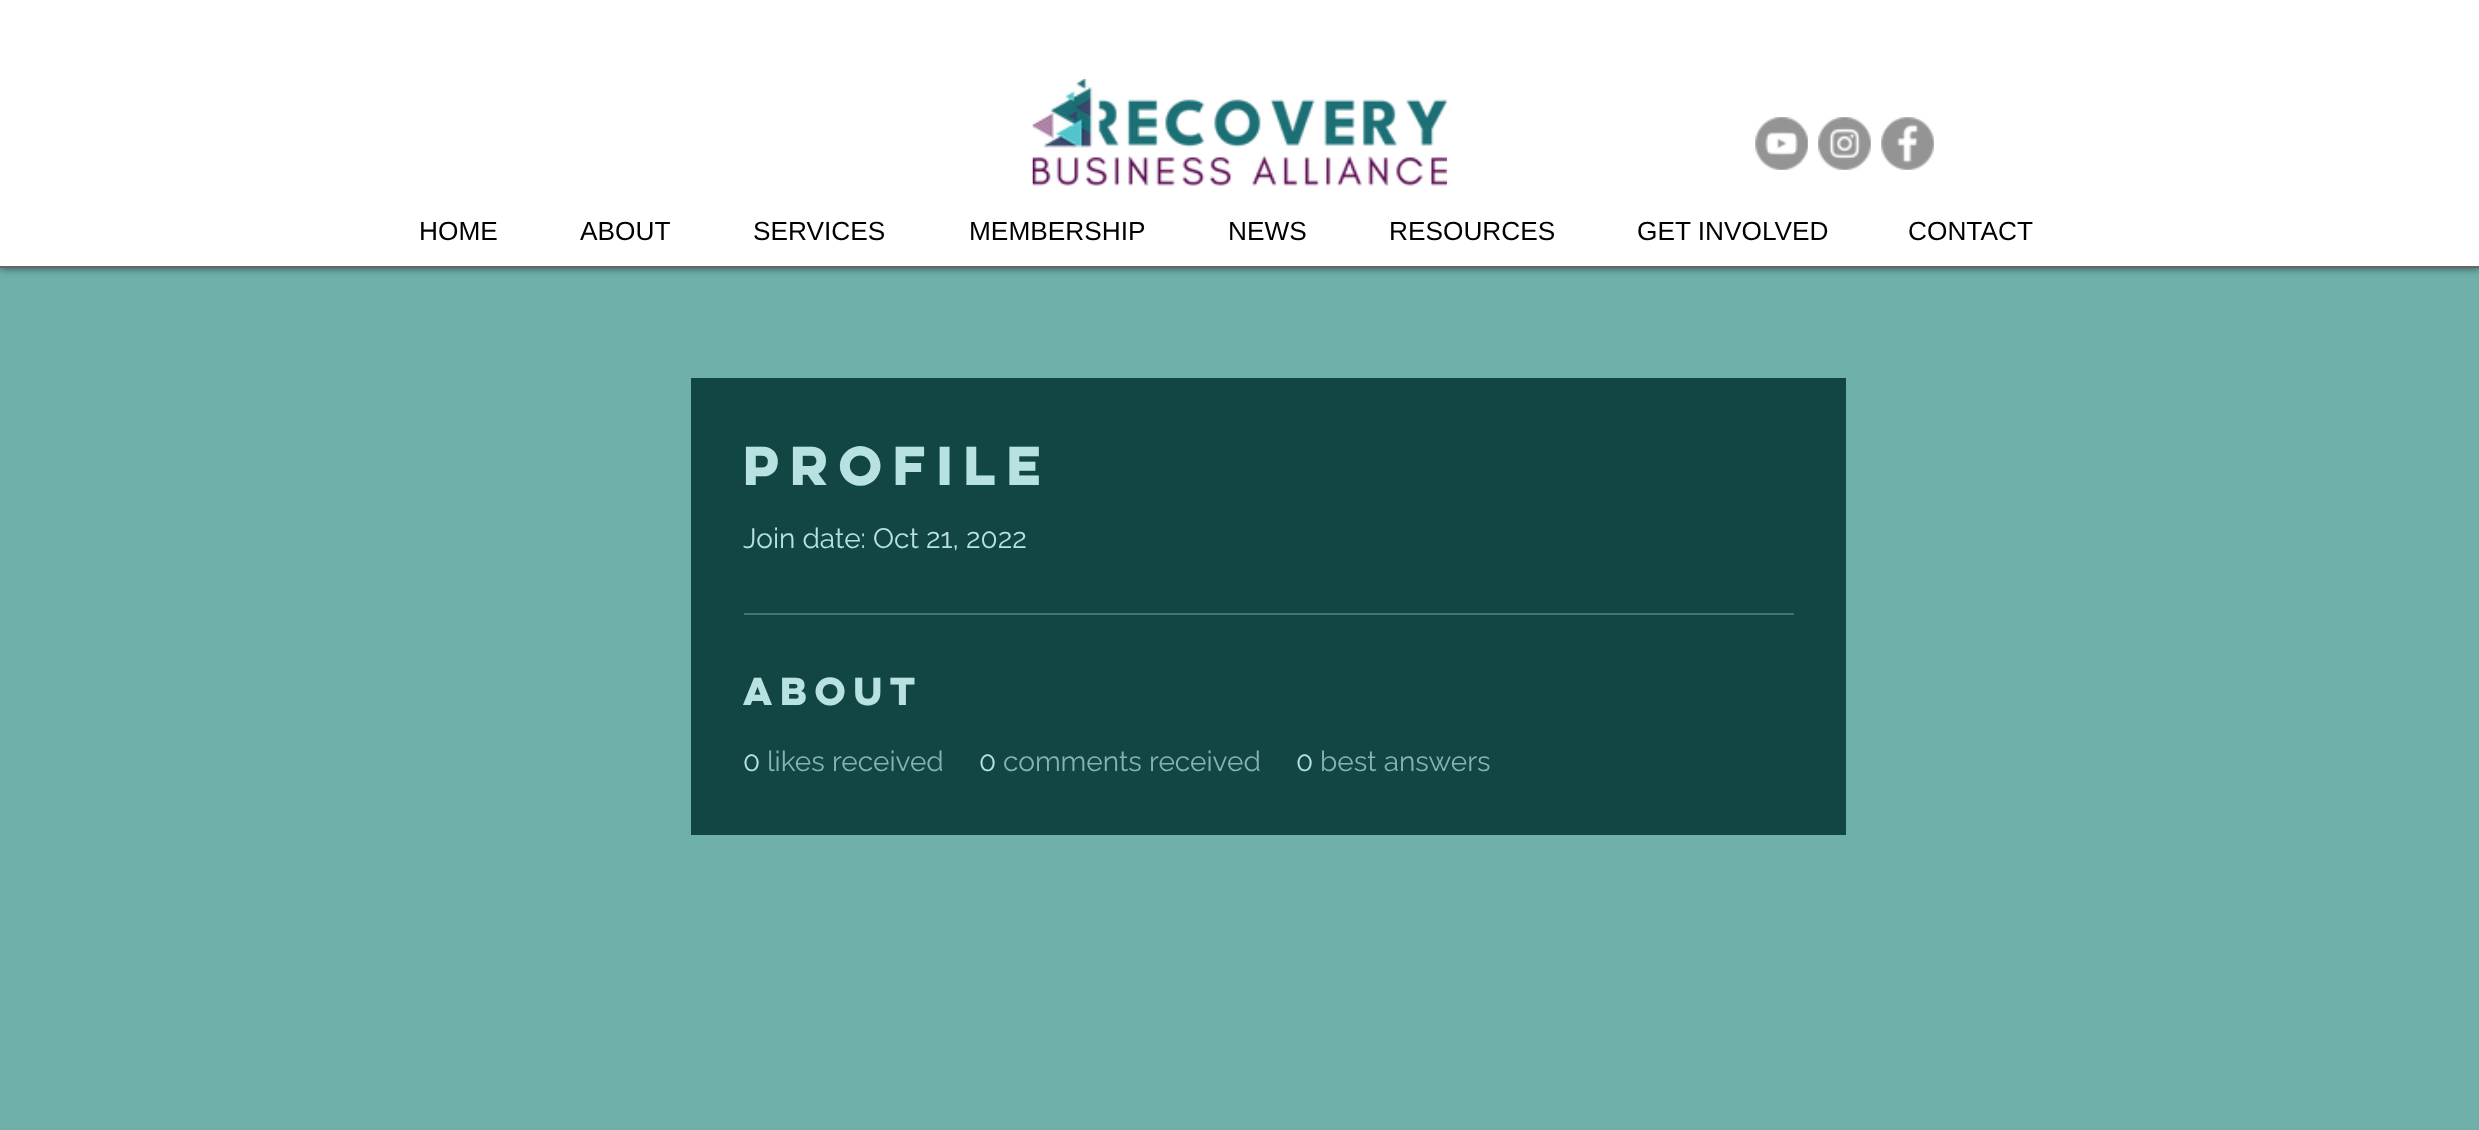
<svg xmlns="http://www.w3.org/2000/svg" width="2479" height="1130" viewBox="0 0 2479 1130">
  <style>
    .t1 { font: 26.25px Liberation Sans; fill: #000; }
    .t2 { font: bold 49px 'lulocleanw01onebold'; fill: #b8e2e1; }
    .t3 { font: 28px Raleway; fill: #b8e2e1; }
    .t4 { font: bold 35px 'lulocleanw01onebold'; fill: #b8e2e1; }
    .t5 { font: 28px Raleway; fill: #86b3b2; }
  </style>
  <rect width="100%" height="100%" fill="#6fb0ab"/>
  <rect x="0" y="0" width="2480" height="268" fill="#00000099" filter="blur(4.5px)"/>
  <rect x="0" y="0" width="2479" height="266" fill="#fff"/>
  <rect x="0" y="266" width="2479" height="2" fill="#666"/>
  <image x="1032" y="78" width="416" height="108" href="images/1.png"/>
  <image x="1755" y="117" width="53" height="53" href="images/2.png"/>
  <image x="1818" y="117" width="53" height="53" href="images/3.png"/>
  <image x="1881" y="117" width="53" height="53" href="images/4.png"/>
  <text x="419" y="240" class="t1">HOME</text>
  <text x="580" y="240" class="t1">ABOUT</text>
  <text x="753" y="240" class="t1">SERVICES</text>
  <text x="969" y="240" class="t1">MEMBERSHIP</text>
  <text x="1228" y="240" class="t1">NEWS</text>
  <text x="1389" y="240" class="t1">RESOURCES</text>
  <text x="1637" y="240" class="t1">GET INVOLVED</text>
  <text x="1908" y="240" class="t1">CONTACT</text>
  <rect x="691" y="378" width="1155" height="457" fill="#124644"/>
  <text x="743" y="485" class="t2">Profile</text>
  <text x="743" y="548" class="t3">Join date: Oct 21, 2022</text>
  <rect x="744" y="613" width="1050" height="2" fill="#447573"/>
  <text x="743" y="705" class="t4">About</text>
  <text x="743" y="771" class="t3">0</text>
  <text x="767" y="771" class="t5">likes received</text>
  <text x="979" y="771" class="t3">0</text>
  <text x="1003" y="771" class="t5">comments received</text>
  <text x="1296" y="771" class="t3">0</text>
  <text x="1320" y="771" class="t5">best answers</text>
</svg>
